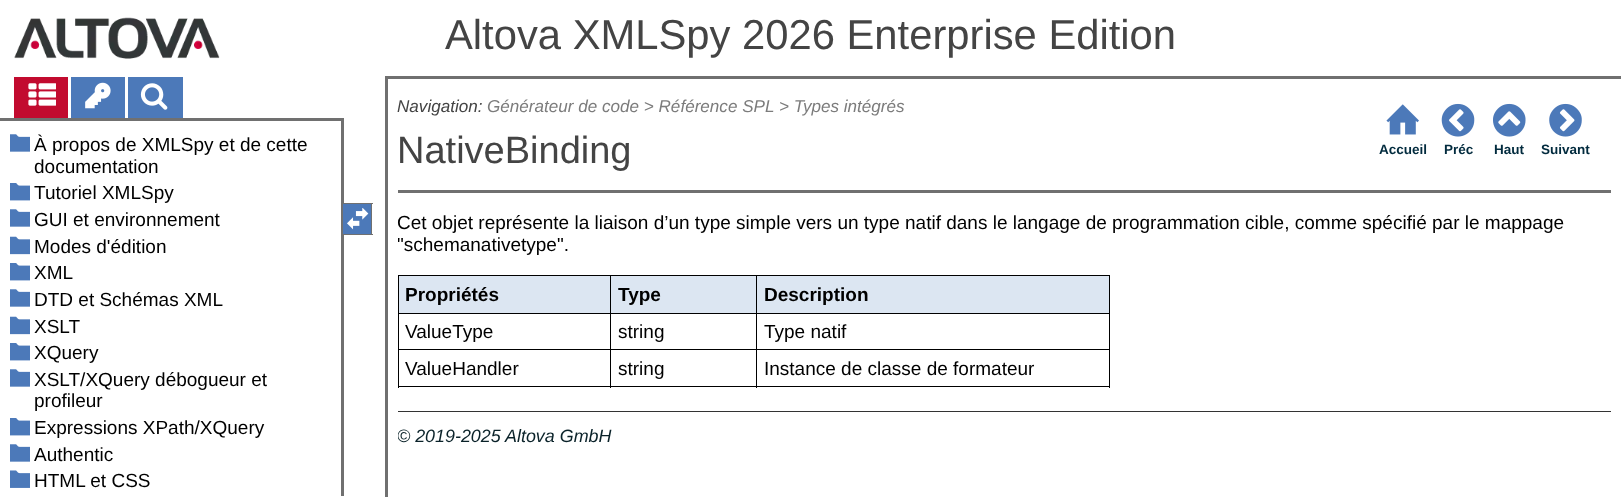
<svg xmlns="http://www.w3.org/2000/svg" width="1621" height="497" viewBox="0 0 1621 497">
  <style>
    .t1 { font: 41.75px Liberation Sans; fill: #444; }
    .t2 { font: 19px Liberation Sans; fill: #000; }
    .t3 { font: italic 17.1px Liberation Sans; fill: #444; }
    .t4 { font: italic 17.1px Liberation Sans; fill: #7c7c7c; }
    .t5 { font: 38px Liberation Sans; fill: #444; }
    .t6 { font: bold 13.5px Liberation Sans; fill: #022b3e; }
    .t7 { font: bold 19px Liberation Sans; fill: #000; }
    .t8 { font: italic 17.9px Liberation Sans; fill: #0a2229; }
  </style>
  <defs>
    <clipPath id="clip1"><rect x="398" y="193" width="1213" height="276"/></clipPath>
  </defs>
  <rect width="100%" height="100%" fill="#fff"/>
  <image x="14" y="17" width="206" height="42" href="images/1.png"/>
  <text x="445" y="49" class="t1">Altova XMLSpy 2026 Enterprise Edition</text>
  <rect x="14" y="77" width="54" height="41" fill="#c20b2f"/>
  <rect x="71" y="77" width="54" height="41" fill="#4c79b9"/>
  <rect x="128" y="77" width="55" height="41" fill="#4c79b9"/>
  <image x="28" y="83" width="28" height="23" href="images/2.png"/>
  <image x="85" y="82" width="26" height="27" href="images/3.png"/>
  <image x="140" y="83" width="28" height="27" href="images/4.png"/>
  <rect x="0" y="118" width="344" height="3" fill="#707070"/>
  <rect x="341" y="118" width="3" height="378" fill="#707070"/>
  <image x="10" y="134" width="20" height="18" href="images/5.png"/>
  <text x="34" y="151" class="t2">À propos de XMLSpy et de cette</text>
  <text x="34" y="173" class="t2">documentation</text>
  <image x="10" y="183" width="20" height="18" href="images/6.png"/>
  <text x="34" y="199" class="t2">Tutoriel XMLSpy</text>
  <image x="10" y="209" width="20" height="18" href="images/5.png"/>
  <text x="34" y="226" class="t2">GUI et environnement</text>
  <image x="10" y="236" width="20" height="19" href="images/7.png"/>
  <text x="34" y="253" class="t2">Modes d'édition</text>
  <image x="10" y="263" width="20" height="18" href="images/6.png"/>
  <text x="34" y="279" class="t2">XML</text>
  <image x="10" y="289" width="20" height="18" href="images/5.png"/>
  <text x="34" y="306" class="t2">DTD et Schémas XML</text>
  <image x="10" y="316" width="20" height="19" href="images/7.png"/>
  <text x="34" y="333" class="t2">XSLT</text>
  <image x="10" y="343" width="20" height="18" href="images/6.png"/>
  <text x="34" y="359" class="t2">XQuery</text>
  <image x="10" y="369" width="20" height="18" href="images/5.png"/>
  <text x="34" y="386" class="t2">XSLT/XQuery débogueur et</text>
  <text x="34" y="407" class="t2">profileur</text>
  <image x="10" y="418" width="20" height="18" href="images/6.png"/>
  <text x="34" y="434" class="t2">Expressions XPath/XQuery</text>
  <image x="10" y="444" width="20" height="18" href="images/5.png"/>
  <text x="34" y="461" class="t2">Authentic</text>
  <image x="10" y="470" width="20" height="18" href="images/8.png"/>
  <text x="34" y="487" class="t2">HTML et CSS</text>
  <rect x="343" y="204" width="28" height="30" fill="#4c79b9"/>
  <rect x="343" y="203" width="30" height="1" fill="#707070"/>
  <rect x="371" y="203" width="1" height="32" fill="#707070"/>
  <rect x="343" y="234" width="30" height="1" fill="#707070"/>
  <image x="347" y="208" width="22" height="22" href="images/9.png"/>
  <rect x="385" y="76" width="1236" height="3" fill="#707070"/>
  <rect x="385" y="76" width="3" height="421" fill="#707070"/>
  <text x="397" y="112" class="t3">Navigation:</text>
  <text x="487" y="112" class="t4">Générateur de code &gt; Référence SPL</text>
  <text x="779" y="112" class="t4">&gt; Types intégrés</text>
  <text x="397" y="163" class="t5">NativeBinding</text>
  <image x="1386" y="104" width="33" height="31" href="images/10.png"/>
  <text x="1379" y="154" class="t6">Accueil</text>
  <image x="1441" y="103" width="34" height="34" href="images/11.png"/>
  <text x="1444" y="154" class="t6">Préc</text>
  <image x="1493" y="103" width="33" height="34" href="images/12.png"/>
  <text x="1494" y="154" class="t6">Haut</text>
  <image x="1549" y="103" width="33" height="34" href="images/13.png"/>
  <text x="1541" y="154" class="t6">Suivant</text>
  <rect x="398" y="190" width="1213" height="3" fill="#707070"/>
  <text x="397" y="229" class="t2">Cet objet représente la liaison d’un type simple vers un type natif dans le langage de programmation cible, comme spécifié par le mappage</text>
  <g clip-path="url(#clip1)">
    <text x="397" y="251" class="t2">"schemanativetype".</text>
  </g>
  <rect x="399" y="276" width="211" height="37" fill="#dce6f2"/>
  <rect x="756" y="275" width="354" height="1" fill="#000"/>
  <rect x="756" y="313" width="354" height="1" fill="#000"/>
  <rect x="756" y="349" width="354" height="1" fill="#000"/>
  <rect x="1109" y="349" width="1" height="39" fill="#000"/>
  <rect x="756" y="386" width="354" height="1" fill="#000"/>
  <rect x="756" y="349" width="1" height="39" fill="#000"/>
  <rect x="610" y="349" width="148" height="1" fill="#000"/>
  <rect x="756" y="313" width="1" height="37" fill="#000"/>
  <rect x="610" y="313" width="148" height="1" fill="#000"/>
  <rect x="756" y="275" width="1" height="39" fill="#000"/>
  <rect x="610" y="275" width="148" height="1" fill="#000"/>
  <rect x="610" y="386" width="148" height="1" fill="#000"/>
  <rect x="610" y="349" width="1" height="39" fill="#000"/>
  <rect x="398" y="349" width="213" height="1" fill="#000"/>
  <rect x="610" y="313" width="1" height="37" fill="#000"/>
  <rect x="398" y="313" width="213" height="1" fill="#000"/>
  <rect x="610" y="275" width="1" height="39" fill="#000"/>
  <rect x="398" y="275" width="213" height="1" fill="#000"/>
  <rect x="398" y="386" width="213" height="1" fill="#000"/>
  <rect x="398" y="349" width="1" height="39" fill="#000"/>
  <rect x="398" y="313" width="1" height="37" fill="#000"/>
  <rect x="398" y="275" width="1" height="39" fill="#000"/>
  <text x="405" y="301" class="t7">Propriétés</text>
  <rect x="611" y="276" width="145" height="37" fill="#dce6f2"/>
  <text x="618" y="301" class="t7">Type</text>
  <rect x="757" y="276" width="352" height="37" fill="#dce6f2"/>
  <rect x="1109" y="313" width="1" height="37" fill="#000"/>
  <rect x="1109" y="275" width="1" height="39" fill="#000"/>
  <text x="764" y="301" class="t7">Description</text>
  <text x="405" y="338" class="t2">ValueType</text>
  <text x="618" y="338" class="t2">string</text>
  <text x="764" y="338" class="t2">Type natif</text>
  <text x="405" y="375" class="t2">ValueHandler</text>
  <text x="618" y="375" class="t2">string</text>
  <text x="764" y="375" class="t2">Instance de classe de formateur</text>
  <rect x="398" y="411" width="1213" height="1" fill="#333"/>
  <g clip-path="url(#clip1)">
    <text x="397" y="442" class="t8">© 2019-2025 Altova GmbH</text>
  </g>
</svg>
